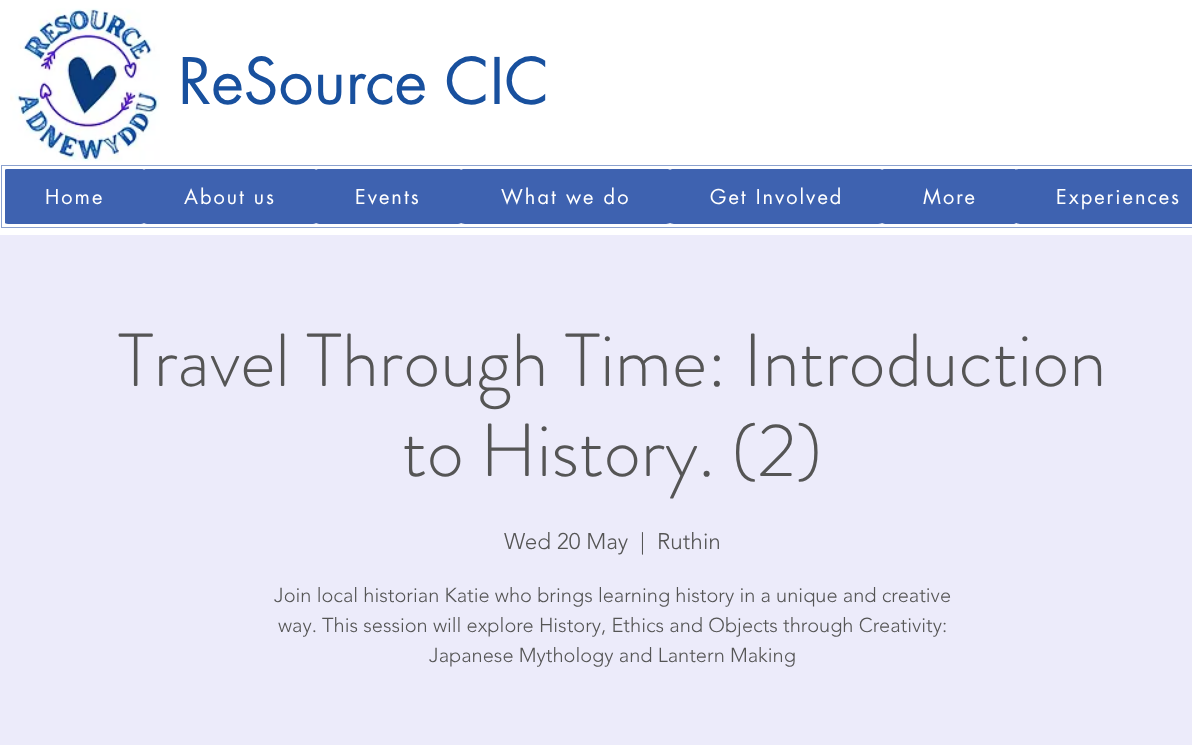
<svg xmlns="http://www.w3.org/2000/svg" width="1192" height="745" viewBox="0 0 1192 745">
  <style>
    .t1 { font: 62.5px futura; fill: #18509e; }
    .t2 { font: 20px futura; letter-spacing: 2px; fill: #fff; }
    .t3 { font: 300 75px 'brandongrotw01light'; fill: #555; }
    .t4 { font: 300 22.5px 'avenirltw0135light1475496'; fill: #555; }
    .t5 { font: 300 20px 'avenirltw0135light1475496'; fill: #555; }
  </style>
  <rect width="100%" height="100%" fill="#fff"/>
  <image x="10" y="8" width="150" height="154" href="images/1.png"/>
  <text x="178" y="104" class="t1">ReSource CIC</text>
  <rect x="1.5" y="165.5" width="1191" height="62" fill="none" stroke="#8ba1cf"/>
  <path d="M8 169H141C143 169 144 169 144 170V223C144 223 143 224 141 224H8C6 224 5 223 5 223V170C5 169 6 169 8 169Z" fill="#3e62b0"/>
  <text x="45" y="204" class="t2">Home</text>
  <path d="M147 169H313C315 169 316 169 316 170V223C316 223 315 224 313 224H147C145 224 144 223 144 223V170C144 169 145 169 147 169Z" fill="#3e62b0"/>
  <text x="184" y="204" class="t2">About us</text>
  <path d="M319 169H458C460 169 461 169 461 170V223C461 223 460 224 458 224H319C318 224 316 223 316 223V170C316 169 318 169 319 169Z" fill="#3e62b0"/>
  <text x="355" y="204" class="t2">Events</text>
  <path d="M465 169H666C668 169 670 169 670 170V223C670 223 668 224 666 224H465C463 224 461 223 461 223V170C461 169 463 169 465 169Z" fill="#3e62b0"/>
  <text x="501" y="204" class="t2">What we do</text>
  <path d="M674 169H878C881 169 882 169 882 170V223C882 223 881 224 878 224H674C672 224 670 223 670 223V170C670 169 672 169 674 169Z" fill="#3e62b0"/>
  <text x="710" y="204" class="t2">Get Involved</text>
  <path d="M885 169H1014C1015 169 1016 169 1016 170V223C1016 223 1015 224 1014 224H885C884 224 882 223 882 223V170C882 169 884 169 885 169Z" fill="#3e62b0"/>
  <text x="923" y="204" class="t2">More</text>
  <path d="M1020 169H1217C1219 169 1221 169 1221 170V223C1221 223 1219 224 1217 224H1020C1018 224 1016 223 1016 223V170C1016 169 1018 169 1020 169Z" fill="#3e62b0"/>
  <text x="1056" y="204" class="t2">Experiences</text>
  <rect x="0" y="235" width="1192" height="510" fill="#ecebfa"/>
  <text x="118" y="386" class="t3">Travel Through Time: Introduction</text>
  <text x="402" y="476" class="t3">to History. (2)</text>
  <text x="504" y="549" class="t4">Wed 20 May</text>
  <text x="640" y="549" class="t4">|</text>
  <text x="657" y="549" class="t4">Ruthin</text>
  <text x="274" y="602" class="t5">Join local historian Katie who brings learning history in a unique and creative</text>
  <text x="278" y="632" class="t5">way. This session will explore History, Ethics and Objects through Creativity:</text>
  <text x="429" y="662" class="t5">Japanese Mythology and Lantern Making</text>
</svg>
